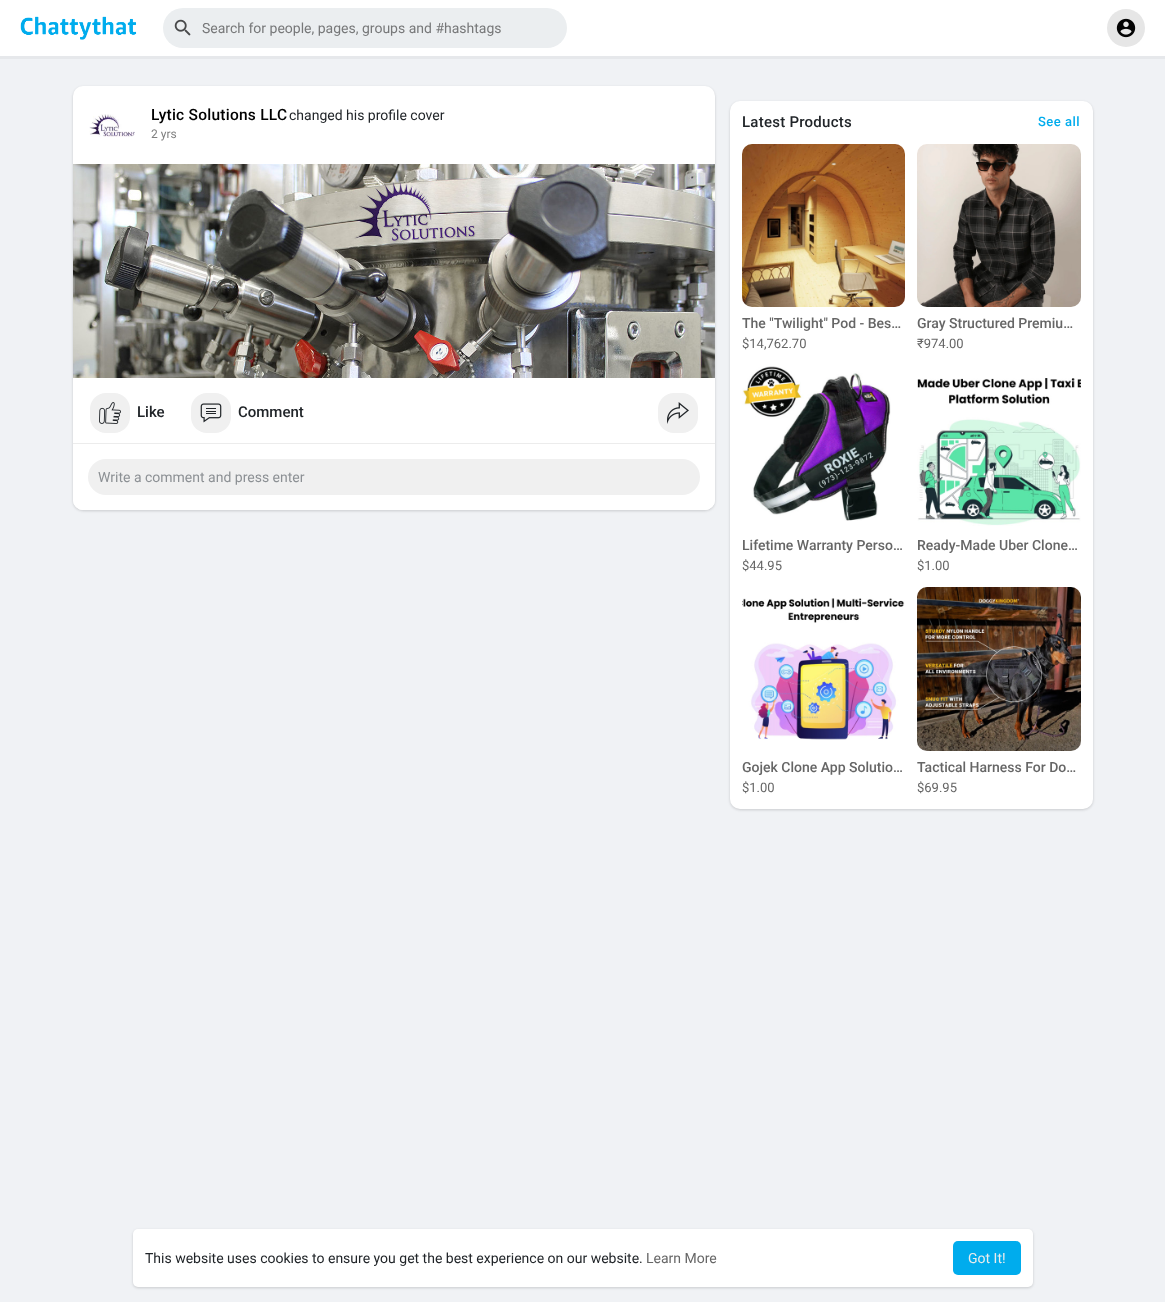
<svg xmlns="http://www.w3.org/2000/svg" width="1165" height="1302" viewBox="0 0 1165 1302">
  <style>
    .t1 { font: 14px Roboto; fill: #777879; }
    .t2 { font: 500 15.5px Roboto; letter-spacing: 0.25px; fill: #000; }
    .t3 { font: 14px Roboto; fill: #212529; }
    .t4 { font: 12px Roboto; fill: #7f7f7f; }
    .t5 { font: 500 15px Roboto; fill: #212529; }
    .t6 { font: 14px Roboto; fill: #8c9094; }
    .t7 { font: 500 15px Roboto; letter-spacing: 0.25px; fill: #212529; }
    .t8 { font: 500 13px Roboto; letter-spacing: 0.5px; fill: #00aced; }
    .t9 { font: 500 14px Roboto; fill: #666; }
    .t10 { font: 13px Roboto; fill: #666; }
    .t11 { font: 14px Roboto; fill: #666; }
    .t12 { font: 14px Roboto; fill: #ececec; }
  </style>
  <rect width="100%" height="100%" fill="#f0f2f5"/>
  <rect x="0" y="0" width="1165" height="56" fill="#fff"/>
  <image x="20" y="16" width="117" height="24" href="images/1.png"/>
  <rect x="163" y="8" width="404" height="40" rx="20" fill="#ebeef0"/>
  <image x="174" y="19" width="17" height="17" href="images/2.png"/>
  <text x="202" y="33" class="t1">Search for people, pages, groups and #hashtags</text>
  <rect x="0" y="56" width="1165" height="3" fill="#e6e8eb"/>
  <circle cx="1126" cy="28" r="19" fill="#e6e6e6"/>
  <image x="1116" y="18" width="20" height="20" href="images/3.png"/>
  <rect x="73" y="87" width="642" height="424" rx="10" fill="#0000000f" filter="blur(1px)"/>
  <rect x="73" y="87" width="642" height="424" rx="10" fill="#0000001a" filter="blur(1.5px)"/>
  <rect x="73" y="86" width="642" height="424" rx="10" fill="#fff"/>
  <image x="89" y="114" width="46" height="23" href="images/4.png"/>
  <text x="151" y="120" class="t2">Lytic Solutions LLC</text>
  <text x="289" y="120" class="t3">changed his profile cover</text>
  <text x="151" y="138" class="t4">2 yrs</text>
  <image x="73" y="164" width="642" height="214" href="images/5.png"/>
  <rect x="90" y="393" width="40" height="40" rx="16" fill="#f0f0f0"/>
  <image x="99" y="402" width="22" height="22" href="images/6.png"/>
  <text x="137" y="417" class="t5">Like</text>
  <rect x="191" y="393" width="40" height="40" rx="16" fill="#f0f0f0"/>
  <image x="200" y="403" width="22" height="20" href="images/7.png"/>
  <text x="238" y="417" class="t5">Comment</text>
  <rect x="658" y="393" width="40" height="40" rx="16" fill="#f0f0f0"/>
  <image x="667" y="402" width="22" height="22" href="images/8.png"/>
  <rect x="73" y="443" width="642" height="1" fill="#ececec"/>
  <rect x="73" y="444" width="642" height="66" rx="10" fill="#fff"/>
  <rect x="88" y="459" width="612" height="36" rx="18" fill="#f0f0f0"/>
  <text x="98" y="482" class="t6">Write a comment and press enter</text>
  <rect x="730" y="102" width="363" height="708" rx="10" fill="#0000000f" filter="blur(1px)"/>
  <rect x="730" y="102" width="363" height="708" rx="10" fill="#0000001a" filter="blur(1.5px)"/>
  <rect x="730" y="101" width="363" height="708" rx="10" fill="#fff"/>
  <text x="742" y="127" class="t7">Latest Products</text>
  <text x="1038" y="126" class="t8">See all</text>
  <image x="742" y="144" width="163" height="163" href="images/9.png"/>
  <text x="742" y="328" class="t9">The "Twilight" Pod - Bes…</text>
  <text x="742" y="348" class="t10">$14,762.70</text>
  <image x="917" y="144" width="164" height="163" href="images/10.png"/>
  <text x="917" y="328" class="t9">Gray Structured Premiu…</text>
  <text x="917" y="348" class="t10">₹974.00</text>
  <image x="742" y="366" width="149" height="155" href="images/11.png"/>
  <text x="742" y="550" class="t9">Lifetime Warranty Perso…</text>
  <text x="742" y="570" class="t10">$44.95</text>
  <image x="917" y="378" width="164" height="148" href="images/12.png"/>
  <text x="917" y="550" class="t9">Ready-Made Uber Clone…</text>
  <text x="917" y="570" class="t10">$1.00</text>
  <image x="742" y="598" width="163" height="142" href="images/13.png"/>
  <text x="742" y="772" class="t9">Gojek Clone App Solutio…</text>
  <text x="742" y="792" class="t10">$1.00</text>
  <image x="917" y="587" width="164" height="164" href="images/14.png"/>
  <text x="917" y="772" class="t9">Tactical Harness For Do…</text>
  <text x="917" y="792" class="t10">$69.95</text>
  <rect x="133" y="1230" width="900" height="58" rx="5" fill="#0000000f" filter="blur(1px)"/>
  <rect x="133" y="1230" width="900" height="58" rx="5" fill="#0000001a" filter="blur(1.5px)"/>
  <rect x="133" y="1229" width="900" height="58" rx="5" fill="#fff"/>
  <text x="145" y="1263" class="t3">This website uses cookies to ensure you get the best experience on our website.</text>
  <text x="646" y="1263" class="t11">Learn More</text>
  <rect x="953" y="1241" width="68" height="34" rx="5" fill="#00aced"/>
  <text x="968" y="1263" class="t12">Got It!</text>
</svg>
